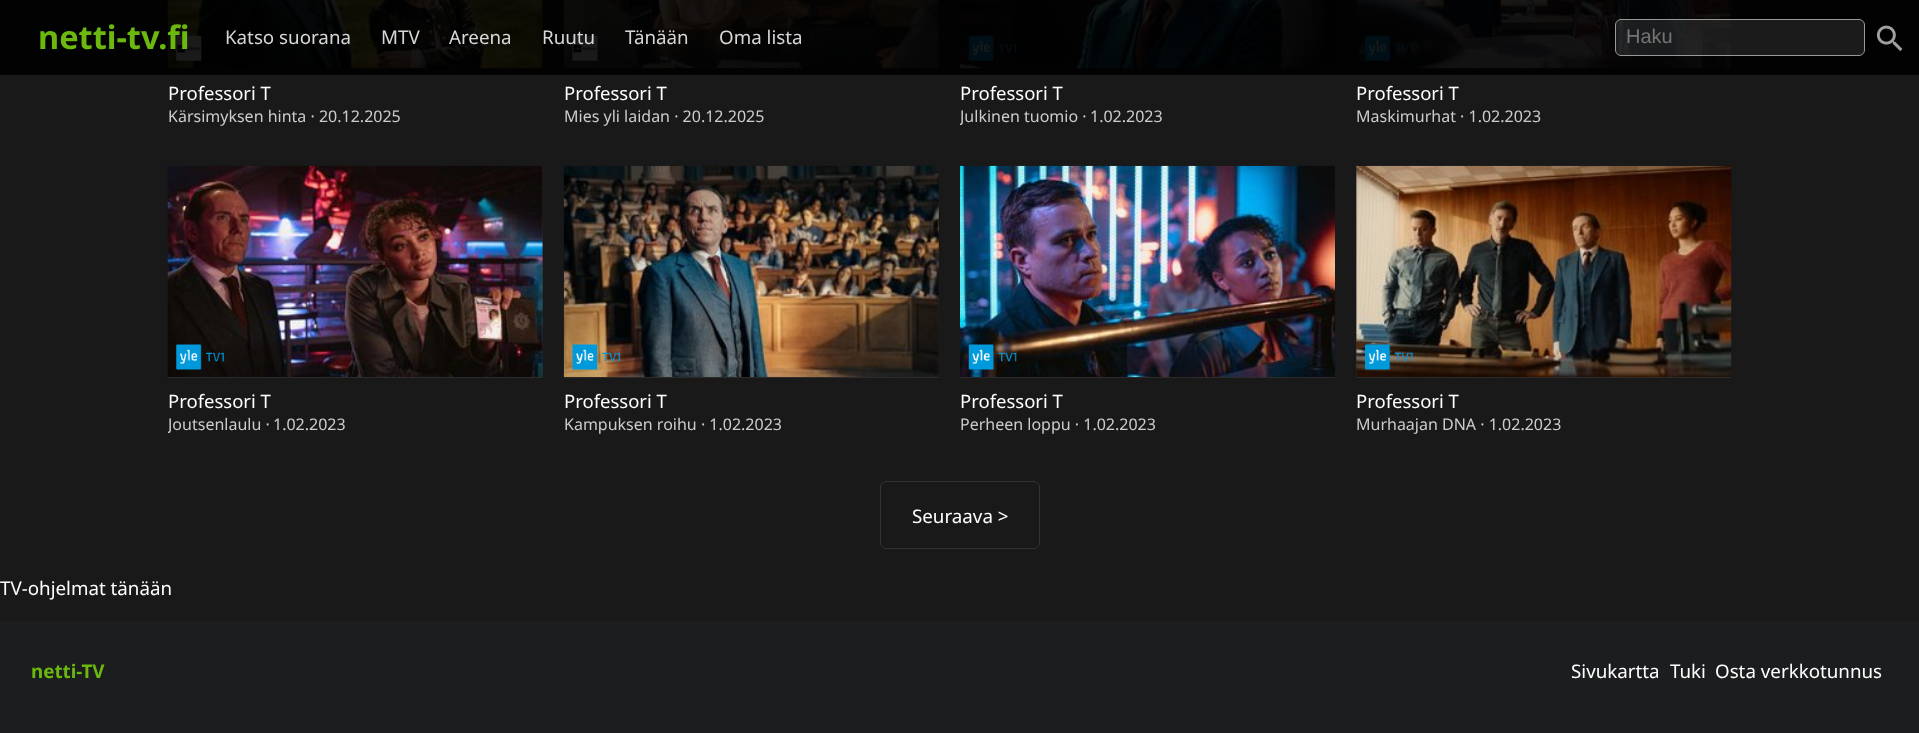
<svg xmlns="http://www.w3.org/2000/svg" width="1919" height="733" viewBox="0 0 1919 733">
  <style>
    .t1 { font: bold 32.5px Noto Sans; fill: #6bb80f; }
    .t2 { font: 18.75px Noto Sans; fill: #d7d7d7; }
    .t3 { font: 20px Liberation Sans; fill: #757575; }
    .t4 { font: 18.5px Noto Sans; fill: #fff; }
    .t5 { font: 16px Noto Sans; fill: #ccc; }
    .t6 { font: 18.75px Noto Sans; fill: #fff; }
    .t7 { font: bold 18.75px Noto Sans; fill: #6bb80f; }
  </style>
  <defs>
    <clipPath id="clip1"><rect x="960" y="0" width="386" height="126"/></clipPath>
    <clipPath id="clip2"><rect x="168" y="166" width="386" height="269"/></clipPath>
  </defs>
  <rect width="100%" height="100%" fill="#191919"/>
  <rect x="0" y="0" width="1919" height="75" fill="#020202"/>
  <image x="167" y="0" width="376" height="69" href="images/2.png"/>
  <image x="176" y="35" width="26" height="26" href="images/3.png"/>
  <text x="38" y="49" class="t1">netti-tv.fi</text>
  <text x="225" y="44" class="t2">Katso suorana</text>
  <text x="381" y="44" class="t2">MTV</text>
  <text x="449" y="44" class="t2">Areena</text>
  <image x="563" y="0" width="376" height="69" href="images/4.png"/>
  <image x="572" y="35" width="26" height="26" href="images/5.png"/>
  <text x="542" y="44" class="t2">Ruutu</text>
  <text x="625" y="44" class="t2">Tänään</text>
  <text x="719" y="44" class="t2">Oma lista</text>
  <image x="1356" y="0" width="376" height="69" href="images/8.png"/>
  <rect x="1615.5" y="19.5" width="249" height="36" rx="5.5" fill="#ffffff1a" stroke="#999"/>
  <text x="1626" y="43" class="t3">Haku</text>
  <image x="1876" y="25" width="27" height="26" href="images/1.png"/>
  <text x="168" y="100" class="t4">Professori T</text>
  <text x="168" y="122" class="t5">Kärsimyksen hinta · 20.12.2025</text>
  <text x="564" y="100" class="t4">Professori T</text>
  <text x="564" y="122" class="t5">Mies yli laidan · 20.12.2025</text>
  <image x="960" y="0" width="375" height="69" href="images/6.png"/>
  <image x="968" y="35" width="49" height="26" href="images/7.png"/>
  <text x="960" y="100" class="t4">Professori T</text>
  <g clip-path="url(#clip1)">
    <text x="960" y="122" class="t5">Julkinen tuomio ·</text>
  </g>
  <text x="1090" y="122" class="t5">1.02.2023</text>
  <image x="1365" y="35" width="48" height="26" href="images/9.png"/>
  <text x="1356" y="100" class="t4">Professori T</text>
  <text x="1356" y="122" class="t5">Maskimurhat · 1.02.2023</text>
  <rect x="168" y="166" width="375" height="212" fill="#2c2b2a"/>
  <image x="167" y="165" width="376" height="212" href="images/10.png"/>
  <image x="176" y="344" width="48" height="26" href="images/11.png"/>
  <text x="168" y="408" class="t4">Professori T</text>
  <g clip-path="url(#clip2)">
    <text x="168" y="430" class="t5">Joutsenlaulu ·</text>
  </g>
  <text x="273" y="430" class="t5">1.02.2023</text>
  <rect x="564" y="166" width="375" height="212" fill="#2c2b2a"/>
  <image x="563" y="165" width="376" height="212" href="images/12.png"/>
  <image x="572" y="344" width="48" height="26" href="images/13.png"/>
  <text x="564" y="408" class="t4">Professori T</text>
  <text x="564" y="430" class="t5">Kampuksen roihu · 1.02.2023</text>
  <image x="960" y="165" width="375" height="212" href="images/14.png"/>
  <image x="968" y="344" width="49" height="26" href="images/15.png"/>
  <rect x="960" y="377" width="375" height="1" fill="#2c2b2a"/>
  <text x="960" y="408" class="t4">Professori T</text>
  <text x="960" y="430" class="t5">Perheen loppu · 1.02.2023</text>
  <rect x="1356" y="166" width="375" height="212" fill="#2c2b2a"/>
  <image x="1356" y="165" width="376" height="212" href="images/16.png"/>
  <image x="1365" y="344" width="48" height="26" href="images/17.png"/>
  <text x="1356" y="408" class="t4">Professori T</text>
  <text x="1356" y="430" class="t5">Murhaajan DNA · 1.02.2023</text>
  <rect x="880.5" y="481.5" width="159" height="67" rx="5.5" fill="none" stroke="#333"/>
  <text x="912" y="523" class="t6">Seuraava &gt;</text>
  <text x="0" y="595" class="t6">TV-ohjelmat tänään</text>
  <rect x="0" y="621" width="1919" height="112" fill="#1c1d1e"/>
  <text x="31" y="678" class="t7">netti-TV</text>
  <text x="1571" y="678" class="t6">Sivukartta</text>
  <text x="1670" y="678" class="t6">Tuki</text>
  <text x="1715" y="678" class="t6">Osta verkkotunnus</text>
</svg>
